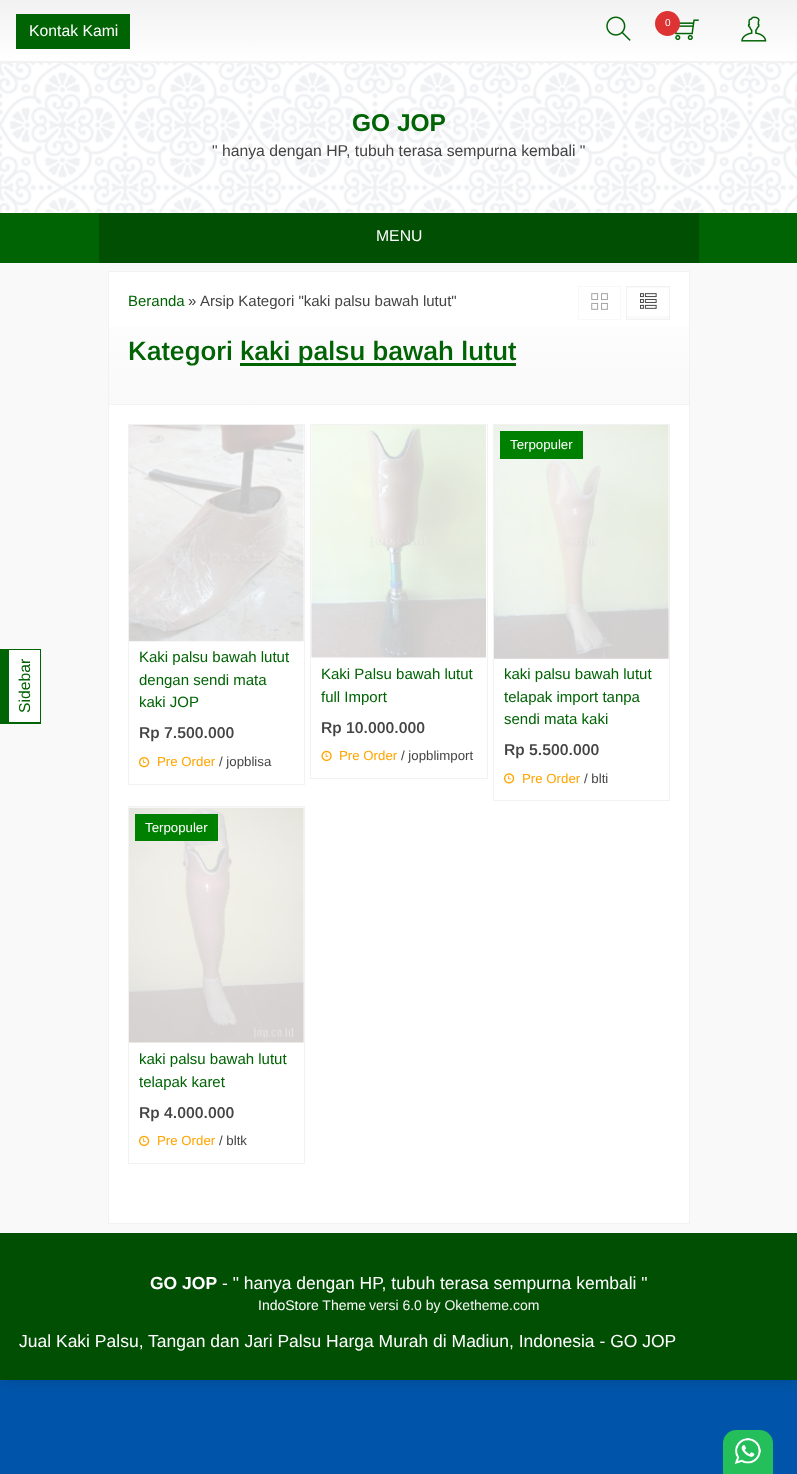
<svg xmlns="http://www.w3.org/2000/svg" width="797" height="1474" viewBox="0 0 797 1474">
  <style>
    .t1 { font: 10px Arimo; fill: #fff; }
    .t2 { font: 15.75px Arimo; fill: #fff; }
    .t3 { font: bold 24.5px Arimo; fill: #006304; }
    .t4 { font: 15.75px Arimo; fill: #444; }
    .t5 { font: 15.75px Arimo; fill: #006304; }
    .t6 { font: 15px Arimo; fill: #006304; }
    .t7 { font: 15px Arimo; fill: #444; }
    .t8 { font: 600 26.6px Arimo; fill: #006304; }
    .t9 { font: 600 15.75px Arimo; fill: #444; }
    .t10 { font: 13.25px Arimo; fill: #ffa500; }
    .t11 { font: 13.25px Arimo; fill: #444; }
    .t12 { font: 13.25px Arimo; fill: #fff; }
    .t13 { font: bold 17.5px Arimo; fill: #fff; }
    .t14 { font: 17.5px Arimo; fill: #fff; }
    .t15 { font: 14px Arimo; fill: #fff; }
    .t16 { font: 14px Arimo; fill: #f5f5f5; }
  </style>
  <defs>
    <linearGradient id="g1" gradientUnits="userSpaceOnUse" x1="399" y1="0" x2="399" y2="61"><stop offset="0" stop-color="#f2f2f2"/><stop offset="1" stop-color="#fff"/></linearGradient>
    <linearGradient id="g2" gradientUnits="userSpaceOnUse" x1="399" y1="61" x2="399" y2="123"><stop offset="0" stop-color="#f2f2f2"/><stop offset="1" stop-color="#fff"/></linearGradient>
    <linearGradient id="g3" gradientUnits="userSpaceOnUse" x1="399" y1="272" x2="399" y2="404"><stop offset="0" stop-color="#fff"/><stop offset="1" stop-color="#f9f9f9"/></linearGradient>
    <linearGradient id="g4" gradientUnits="userSpaceOnUse" x1="648" y1="288" x2="648" y2="256"><stop offset="0" stop-color="#fafafa"/><stop offset="1" stop-color="#fff"/></linearGradient>
    <linearGradient id="g5" gradientUnits="userSpaceOnUse" x1="648" y1="319" x2="648" y2="288"><stop offset="0" stop-color="#fafafa"/><stop offset="1" stop-color="#fff"/></linearGradient>
  </defs>
  <rect width="100%" height="100%" fill="#05a"/>
  <rect x="0" y="0" width="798" height="1380" fill="#00000026" filter="blur(7.5px)"/>
  <rect x="0" y="0" width="797" height="61" fill="url(#g1)"/>
  <rect x="0" y="61" width="797" height="2" fill="url(#g2)"/>
  <image x="606" y="16" width="25" height="25" href="images/1.png"/>
  <image x="675" y="19" width="24" height="22" href="images/2.png"/>
  <circle cx="667.5" cy="23.5" r="12.5" fill="#d33"/>
  <text x="665" y="26" class="t1">0</text>
  <image x="741" y="16" width="26" height="26" href="images/3.png"/>
  <rect x="16" y="14" width="114" height="35" fill="#006304"/>
  <text x="29" y="36" class="t2">Kontak Kami</text>
  <rect x="0" y="212" width="797" height="1" fill="#fafafa"/>
  <image x="0" y="63" width="797" height="150" href="images/4.png"/>
  <text x="352" y="131" class="t3">GO JOP</text>
  <text x="212" y="156" class="t4">" hanya dengan HP, tubuh terasa sempurna kembali "</text>
  <rect x="0" y="213" width="797" height="50" fill="#006304"/>
  <rect x="99" y="213" width="600" height="50" fill="#004f03"/>
  <text x="376" y="241" class="t2">MENU</text>
  <rect x="0" y="263" width="797" height="970" fill="#f9f9f9"/>
  <rect x="9" y="650" width="31" height="72" fill="#fff"/>
  <rect x="0" y="650" width="9" height="72" fill="#006304"/>
  <rect x="0" y="649" width="41" height="1" fill="#006304"/>
  <rect x="40" y="649" width="1" height="75" fill="#006304"/>
  <rect x="0" y="722" width="41" height="2" fill="#006304"/>
  <text x="30" y="713" transform="rotate(-90 30 713)" class="t5">Sidebar</text>
  <rect x="108.5" y="271.5" width="581" height="952" fill="#fff" stroke="#f2f2f2"/>
  <rect x="109" y="327" width="580" height="77" fill="url(#g3)"/>
  <rect x="109" y="404" width="580" height="1" fill="#f2f2f2"/>
  <text x="128" y="306" class="t6">Beranda</text>
  <text x="188" y="306" class="t7">»</text>
  <text x="200" y="306" class="t7">Arsip Kategori "kaki palsu bawah lutut"</text>
  <rect x="578.5" y="286.5" width="42" height="33" fill="none" stroke="#f8f8f8"/>
  <rect x="626" y="287" width="44" height="1" fill="url(#g4)"/>
  <rect x="627" y="316" width="42" height="3" fill="url(#g5)"/>
  <rect x="626.5" y="286.5" width="43" height="33" fill="none" stroke="#f2f2f2"/>
  <image x="591" y="293" width="17" height="17" href="images/5.png"/>
  <image x="640" y="293" width="17" height="16" href="images/6.png"/>
  <text x="128" y="360" class="t8">Kategori</text>
  <rect x="240" y="363" width="276" height="3" fill="#006304"/>
  <text x="240" y="360" class="t8">kaki palsu bawah lutut</text>
  <rect x="128.5" y="424.5" width="176" height="360" fill="none" stroke="#f2f2f2"/>
  <image x="129" y="425" width="175" height="217" href="images/7.png"/>
  <text x="139" y="662" class="t6">Kaki palsu bawah lutut</text>
  <text x="139" y="685" class="t6">dengan sendi mata</text>
  <text x="139" y="707" class="t6">kaki JOP</text>
  <text x="139" y="738" class="t9">Rp 7.500.000</text>
  <image x="139" y="757" width="11" height="11" href="images/8.png"/>
  <text x="157" y="766" class="t10">Pre Order</text>
  <text x="219" y="766" class="t11">/ jopblisa</text>
  <rect x="310.5" y="424.5" width="177" height="354" fill="none" stroke="#f2f2f2"/>
  <image x="311" y="425" width="175" height="233" href="images/9.png"/>
  <text x="321" y="679" class="t6">Kaki Palsu bawah lutut</text>
  <text x="321" y="702" class="t6">full Import</text>
  <text x="321" y="733" class="t9">Rp 10.000.000</text>
  <image x="321" y="750" width="11" height="11" href="images/10.png"/>
  <text x="339" y="760" class="t10">Pre Order</text>
  <text x="401" y="760" class="t11">/ jopblimport</text>
  <rect x="493.5" y="424.5" width="176" height="376" fill="none" stroke="#f2f2f2"/>
  <image x="494" y="425" width="175" height="234" href="images/11.png"/>
  <rect x="500" y="431" width="83" height="28" fill="#008000"/>
  <text x="510" y="449" class="t12">Terpopuler</text>
  <text x="504" y="679" class="t6">kaki palsu bawah lutut</text>
  <text x="504" y="702" class="t6">telapak import tanpa</text>
  <text x="504" y="724" class="t6">sendi mata kaki</text>
  <text x="504" y="755" class="t9">Rp 5.500.000</text>
  <image x="503" y="773" width="12" height="11" href="images/12.png"/>
  <text x="522" y="783" class="t10">Pre Order</text>
  <text x="584" y="783" class="t11">/ blti</text>
  <rect x="128.5" y="806.5" width="176" height="357" fill="none" stroke="#f2f2f2"/>
  <image x="129" y="807" width="175" height="236" href="images/13.png"/>
  <rect x="135" y="814" width="83" height="27" fill="#008000"/>
  <text x="145" y="832" class="t12">Terpopuler</text>
  <text x="139" y="1064" class="t6">kaki palsu bawah lutut</text>
  <text x="139" y="1087" class="t6">telapak karet</text>
  <text x="139" y="1118" class="t9">Rp 4.000.000</text>
  <image x="139" y="1135" width="11" height="11" href="images/14.png"/>
  <text x="157" y="1145" class="t10">Pre Order</text>
  <text x="219" y="1145" class="t11">/ bltk</text>
  <rect x="0" y="1233" width="797" height="147" fill="#004f03"/>
  <text x="150" y="1289" class="t13">GO JOP</text>
  <text x="222" y="1289" class="t14">- " hanya dengan HP, tubuh terasa sempurna kembali "</text>
  <text x="258" y="1310" class="t15">IndoStore Theme</text>
  <text x="369" y="1310" class="t16">versi 6.0 by Oketheme.com</text>
  <text x="19" y="1347" class="t14">Jual Kaki Palsu, Tangan dan Jari Palsu Harga Murah di Madiun, Indonesia - GO JOP</text>
  <path d="M736 1430H760C767 1430 773 1436 773 1443V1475H723V1443C723 1436 729 1430 736 1430Z" fill="#24be5b"/>
  <image x="734" y="1438" width="27" height="27" href="images/15.png"/>
</svg>
